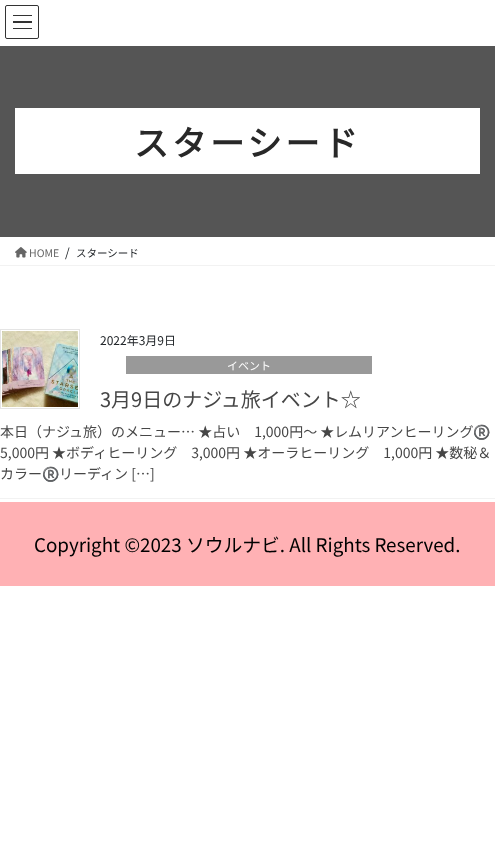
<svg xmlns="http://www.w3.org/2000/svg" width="495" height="848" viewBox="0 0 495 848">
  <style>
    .t1 { font: bold 34.5px Noto Sans JP; letter-spacing: 3.5px; fill: #282828; }
    .t2 { font: 100 10.5px Noto Sans JP; fill: #666; }
    .t3 { font: 100 12px Noto Sans JP; fill: #212529; }
    .t4 { font: 100 10.5px Noto Sans JP; fill: #212529; }
    .t5 { font: 100 11px Noto Sans JP; fill: #fff; }
    .t6 { font: 100 20px Noto Sans JP; fill: #464646; }
    .t7 { font: 100 14px Noto Sans JP; fill: #464646; }
    .t8 { font: 14px Noto Color Emoji; fill: #464646; }
    .t9 { font: 100 18.8px Noto Sans JP; fill: #000; }
  </style>
  <rect width="100%" height="100%" fill="#fff"/>
  <rect x="13" y="15" width="19" height="1" fill="#333"/>
  <rect x="13" y="21" width="19" height="2" fill="#333"/>
  <rect x="13" y="28" width="19" height="1" fill="#333"/>
  <rect x="5.5" y="5.5" width="33" height="33" rx="1.5" fill="none" stroke="#333"/>
  <rect x="0" y="46" width="495" height="191" fill="#555"/>
  <rect x="15" y="108" width="465" height="66" fill="#fff"/>
  <text x="134" y="156" class="t1">スターシード</text>
  <rect x="0" y="265" width="495" height="1" fill="#f2f2f2"/>
  <image x="15" y="247" width="12" height="11" href="images/1.png"/>
  <text x="29" y="257" class="t2">HOME</text>
  <text x="65" y="257" class="t3">/</text>
  <text x="76" y="257" class="t4">スターシード</text>
  <rect x="0" y="498" width="495" height="1" fill="#f2f2f2"/>
  <rect x="0.5" y="329.5" width="79" height="79" fill="none" stroke="#e5e5e5"/>
  <image x="2" y="331" width="76" height="76" href="images/2.png"/>
  <text x="100" y="345" class="t3">2022年3月9日</text>
  <rect x="126" y="356" width="246" height="18" fill="#999"/>
  <text x="227" y="370" class="t5">イベント</text>
  <text x="100" y="407" class="t6">3月9日のナジュ旅イベント☆</text>
  <text x="0" y="437" class="t7">本日（ナジュ旅）のメニュー… ★占い　1,000円〜 ★レムリアンヒーリング</text>
  <text x="473" y="437" class="t8">®️</text>
  <text x="0" y="458" class="t7">5,000円 ★ボディヒーリング　3,000円 ★オーラヒーリング　1,000円 ★数秘＆</text>
  <text x="0" y="479" class="t7">カラー</text>
  <text x="42" y="479" class="t8">®️</text>
  <text x="59" y="479" class="t7">リーディン […]</text>
  <rect x="0" y="502" width="495" height="84" fill="#ffb1b4"/>
  <text x="34" y="552" class="t9">Copyright ©2023 ソウルナビ. All Rights Reserved.</text>
</svg>
